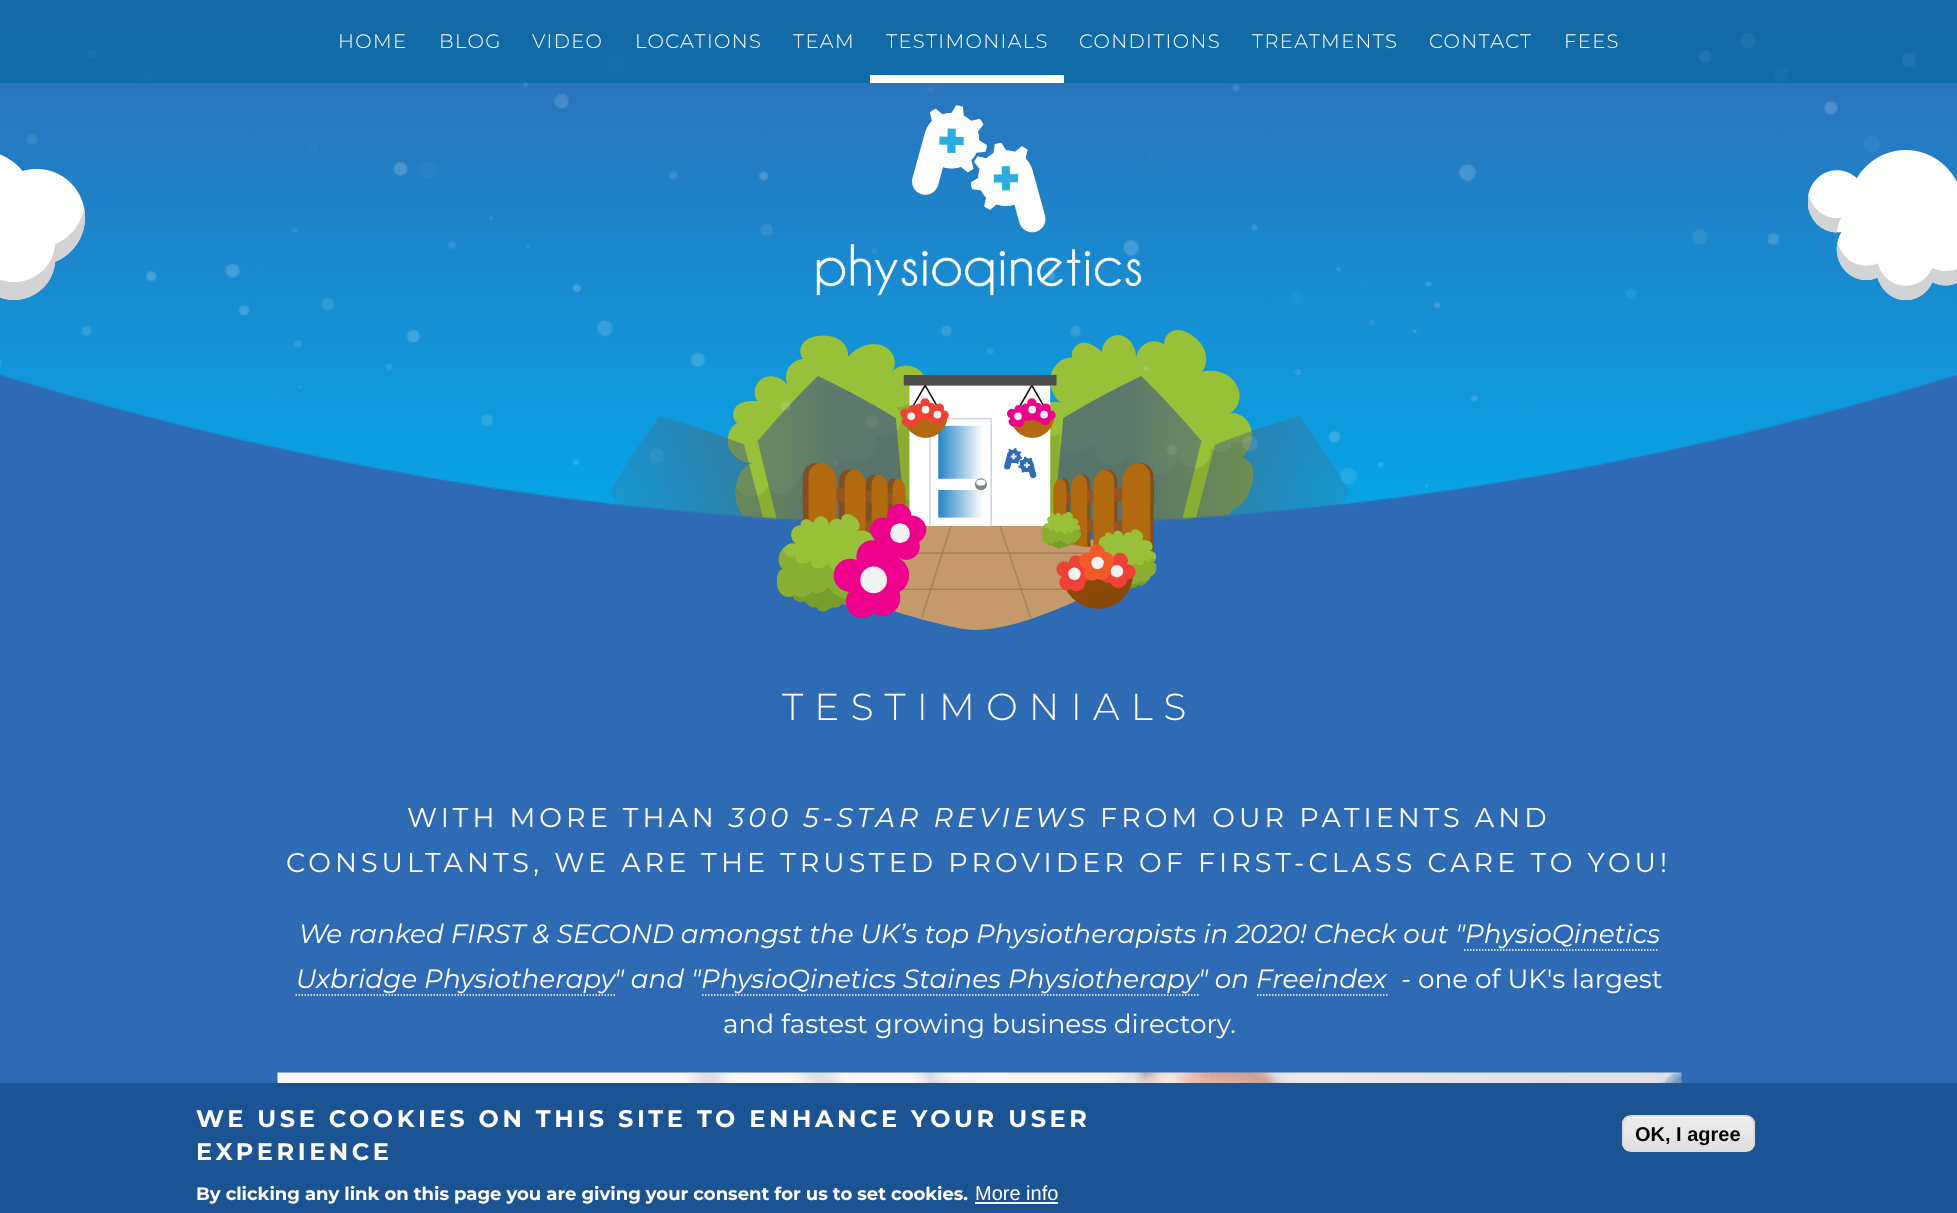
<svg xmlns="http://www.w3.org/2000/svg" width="1957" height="1213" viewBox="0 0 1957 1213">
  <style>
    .t1 { font: 300 19.5px Montserrat; letter-spacing: 1.4px; fill: #fff; }
    .t2 { font: 300 37.5px Montserrat; letter-spacing: 11.25px; fill: #fff; }
    .t3 { font: 27px Montserrat; letter-spacing: 4.05px; fill: #fff; }
    .t4 { font: italic 27px Montserrat; letter-spacing: 4.05px; fill: #fff; }
    .t5 { font: italic 26.33px Montserrat; fill: #fff; }
    .t6 { font: 26.33px Montserrat; fill: #fff; }
    .t7 { font: bold 24px Montserrat; letter-spacing: 3.6px; fill: #fff; }
    .t8 { font: bold 18px Montserrat; fill: #fff; }
    .t9 { font: 20px Liberation Sans; fill: #fff; }
    .t10 { font: bold 20px Liberation Sans; fill: #000; }
  </style>
  <defs>
    <linearGradient id="g1" gradientUnits="userSpaceOnUse" x1="979" y1="0" x2="979" y2="600"><stop offset="0" stop-color="#2f6bb5"/><stop offset="1" stop-color="#00afef"/></linearGradient>
    <clipPath id="clip1"><rect x="1622" y="1115" width="133" height="37" rx="9"/></clipPath>
    <linearGradient id="g2" gradientUnits="userSpaceOnUse" x1="1688" y1="1116" x2="1688" y2="1151"><stop offset="0.05" stop-color="#ededed"/><stop offset="1" stop-color="#dfdfdf"/></linearGradient>
  </defs>
  <rect width="100%" height="100%" fill="#2f6bb5"/>
  <rect x="0" y="22" width="1957" height="496" fill="url(#g1)"/>
  <image x="0" y="154" width="85" height="146" href="images/2.png"/>
  <image x="1808" y="150" width="149" height="150" href="images/3.png"/>
  <image x="610" y="330" width="739" height="192" href="images/4.png"/>
  <image x="0" y="12" width="1934" height="476" href="images/1.png"/>
  <rect x="0" y="0" width="1957" height="83" fill="#00679999"/>
  <text x="338" y="48" class="t1">HOME</text>
  <text x="439" y="48" class="t1">BLOG</text>
  <text x="532" y="48" class="t1">VIDEO</text>
  <text x="635" y="48" class="t1">LOCATIONS</text>
  <text x="793" y="48" class="t1">TEAM</text>
  <text x="886" y="48" class="t1">TESTIMONIALS</text>
  <rect x="870" y="75" width="194" height="8" fill="#fff"/>
  <text x="1079" y="48" class="t1">CONDITIONS</text>
  <text x="1252" y="48" class="t1">TREATMENTS</text>
  <text x="1429" y="48" class="t1">CONTACT</text>
  <text x="1564" y="48" class="t1">FEES</text>
  <image x="912" y="105" width="75" height="90" href="images/5.png"/>
  <image x="971" y="143" width="75" height="90" href="images/6.png"/>
  <image x="816" y="244" width="326" height="52" href="images/7.png"/>
  <image x="0" y="375" width="1957" height="225" href="images/8.png"/>
  <image x="777" y="375" width="380" height="255" href="images/9.png"/>
  <text x="782" y="720" class="t2">TESTIMONIALS</text>
  <text x="407" y="827" class="t3">WITH MORE THAN</text>
  <text x="729" y="827" class="t4">300 5-STAR REVIEWS</text>
  <text x="1100" y="827" class="t3">FROM OUR PATIENTS AND</text>
  <text x="286" y="872" class="t3">CONSULTANTS, WE ARE THE TRUSTED PROVIDER OF FIRST-CLASS CARE TO YOU!</text>
  <text x="299" y="943" class="t5">We ranked FIRST &amp; SECOND amongst the UK’s top Physiotherapists in 2020! Check out "PhysioQinetics</text>
  <text x="296" y="988" class="t5">Uxbridge Physiotherapy</text>
  <path d="M295.5 995H615" fill="none" stroke="#fff" stroke-width="1.5" stroke-dasharray="1.5 1.5"/>
  <text x="614" y="988" class="t5">" and "</text>
  <text x="701" y="988" class="t5">PhysioQinetics Staines Physiotherapy</text>
  <path d="M702 995H1198.5" fill="none" stroke="#fff" stroke-width="1.5" stroke-dasharray="1.5 1.5"/>
  <text x="1198" y="988" class="t5">" on Freeindex</text>
  <path d="M1257 995H1387.5" fill="none" stroke="#fff" stroke-width="1.5" stroke-dasharray="1.5 1.5"/>
  <text x="1401" y="988" class="t5">-</text>
  <path d="M1464 950H1659" fill="none" stroke="#fff" stroke-width="1.5" stroke-dasharray="1.5 1.5"/>
  <text x="1418" y="988" class="t6">one of UK's largest</text>
  <text x="723" y="1033" class="t6">and fastest growing business directory.</text>
  <image x="277" y="1072" width="1405" height="11" href="images/10.png"/>
  <rect x="0" y="1083" width="1957" height="130" fill="#1c5493"/>
  <text x="196" y="1127" class="t7">WE USE COOKIES ON THIS SITE TO ENHANCE YOUR USER</text>
  <text x="196" y="1160" class="t7">EXPERIENCE</text>
  <text x="196" y="1200" class="t8">By clicking any link on this page you are giving your consent for us to set cookies.</text>
  <text x="975" y="1200" class="t9">More info</text>
  <rect x="975" y="1202" width="83" height="2" fill="#fff"/>
  <g clip-path="url(#clip1)">
    <rect x="1622" y="1116" width="133" height="35" fill="url(#g2)"/>
  </g>
  <path d="M1630 1118H1746C1750 1118 1754 1121 1754 1125C1754 1111 1735 1116 1727 1116H1650C1642 1116 1623 1111 1623 1125C1623 1121 1626 1118 1630 1118Z" fill="#fff"/>
  <rect x="1623" y="1116" width="131" height="35" rx="8" fill="none" stroke="#dcdcdc" stroke-width="2"/>
  <text x="1635" y="1141" class="t10">OK, I agree</text>
</svg>
